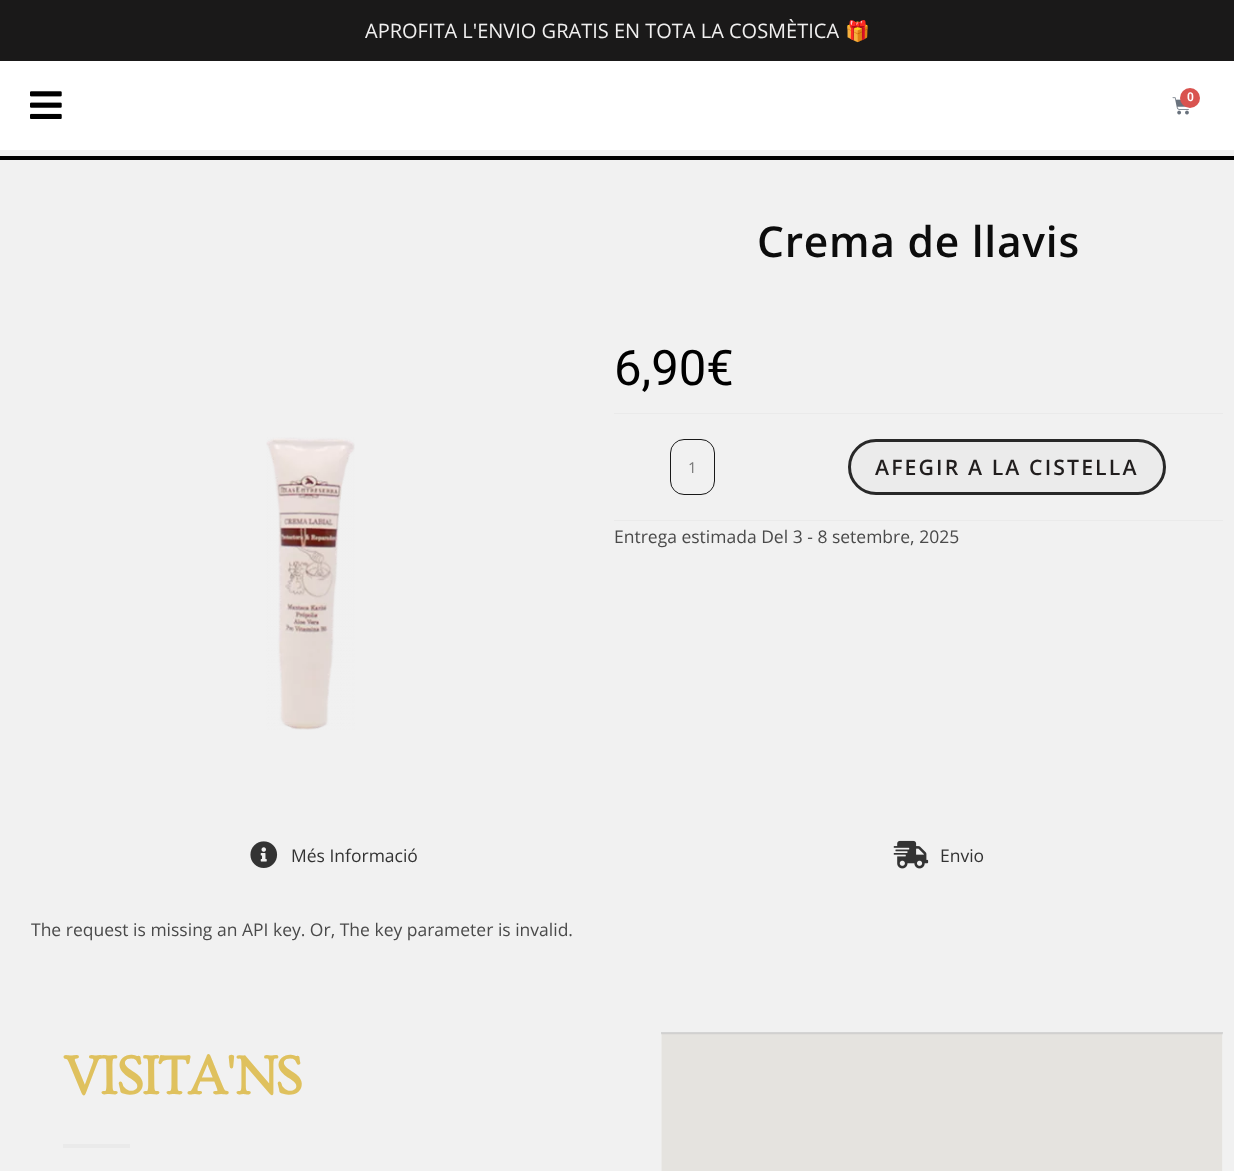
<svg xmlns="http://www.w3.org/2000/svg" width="1234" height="1171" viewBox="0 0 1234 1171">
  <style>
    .t1 { font: 20px Open Sans; fill: #f0efef; }
    .t2 { font: 20px Noto Color Emoji; fill: #f0efef; }
    .t3 { font: 600 12px Roboto; fill: #fff; }
    .t4 { font: 600 42.5px Open Sans; letter-spacing: 0.75px; fill: #0c0c0c; }
    .t5 { font: 49px Roboto; fill: #000; }
    .t6 { font: 15px Open Sans; fill: #777; }
    .t7 { font: 600 21.25px Open Sans; letter-spacing: 2.1px; fill: #211e1e; }
    .t8 { font: 17.5px Open Sans; fill: #4a4a4a; }
    .t9 { font: 17.5px Open Sans; fill: #333; }
    .t10 { font: bold 56.25px Ovo; letter-spacing: -2.5px; fill: #dfc15e; }
  </style>
  <rect width="100%" height="100%" fill="#f1f1f1"/>
  <rect x="0" y="0" width="1234" height="61" fill="#1a1919"/>
  <text x="365" y="38" class="t1">APROFITA L'ENVIO GRATIS EN TOTA LA COSMÈTICA</text>
  <text x="845" y="38" class="t2">🎁</text>
  <rect x="0" y="61" width="1234" height="89" fill="#fff"/>
  <image x="30" y="91" width="32" height="28" href="images/1.png"/>
  <image x="1172" y="97" width="17" height="18" href="images/2.png"/>
  <circle cx="1190" cy="98" r="10" fill="#d9534f"/>
  <text x="1187" y="101" class="t3">0</text>
  <rect x="0" y="156" width="1234" height="4" fill="#000"/>
  <text x="757" y="257" class="t4">Crema de llavis</text>
  <text x="614" y="385" class="t5">6,90€</text>
  <rect x="614" y="413" width="609" height="1" fill="#eaeaea"/>
  <rect x="614" y="520" width="609" height="1" fill="#eaeaea"/>
  <rect x="670.5" y="439.5" width="44" height="55" rx="13.5" fill="none" stroke="#191919"/>
  <text x="688" y="473" class="t6">1</text>
  <rect x="849.5" y="440.5" width="315" height="53" rx="26.5" fill="#ebebeb" stroke="#282828" stroke-width="3"/>
  <text x="875" y="475" class="t7">AFEGIR A LA CISTELLA</text>
  <text x="614" y="543" class="t8">Entrega estimada Del 3 - 8 setembre, 2025</text>
  <image x="266" y="437" width="89" height="293" href="images/3.png"/>
  <image x="250" y="841" width="28" height="27" href="images/4.png"/>
  <text x="291" y="862" class="t9">Més Informació</text>
  <image x="893" y="840" width="36" height="29" href="images/5.png"/>
  <text x="940" y="862" class="t9">Envio</text>
  <text x="31" y="936" class="t8">The request is missing an API key. Or, The key parameter is invalid.</text>
  <text x="63" y="1094" class="t10">VISITA'NS</text>
  <rect x="63" y="1144" width="67" height="4" fill="#eaeaea"/>
  <image x="661" y="1032" width="562" height="139" href="images/6.png"/>
</svg>
